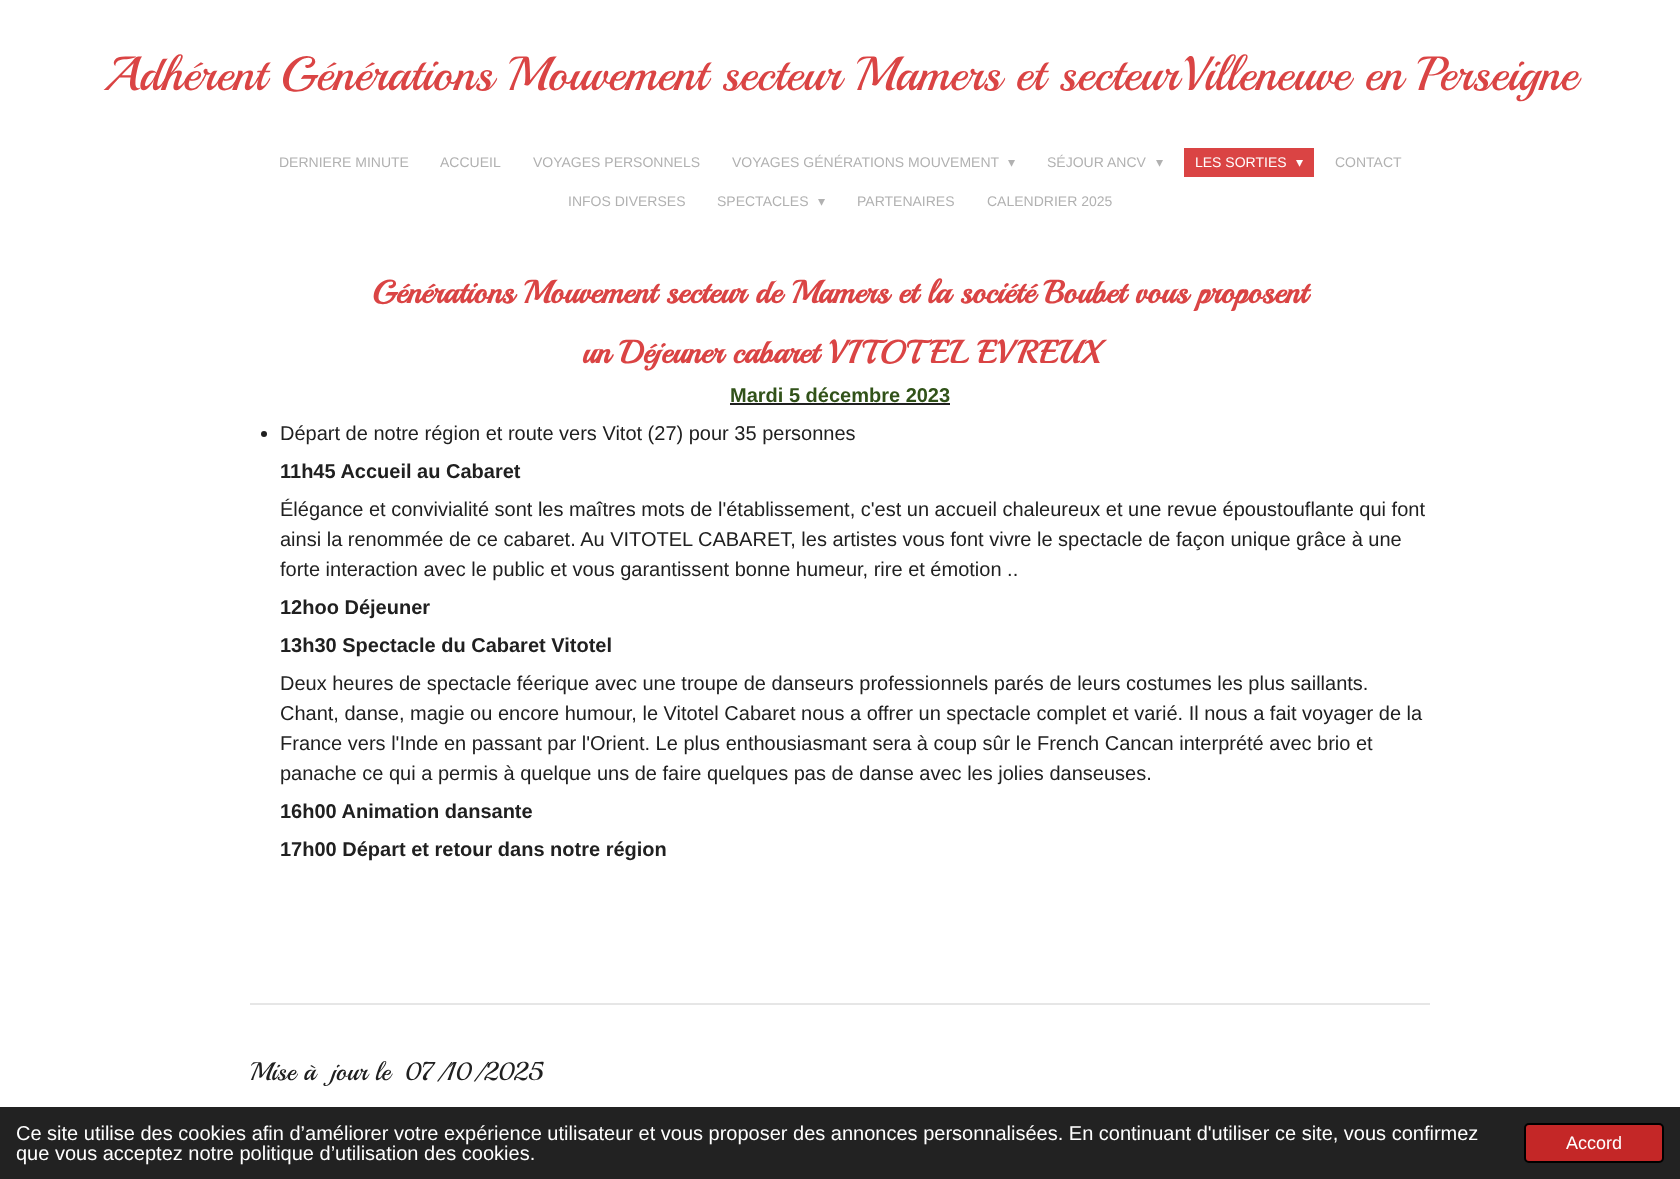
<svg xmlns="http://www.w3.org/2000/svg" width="1680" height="1179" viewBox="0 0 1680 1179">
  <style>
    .t1 { font: 48px Playball; fill: #da4444; }
    .t2 { font: 14px Liberation Sans; fill: #b1b1b1; }
    .t3 { font: 14px DejaVu Sans; fill: #b1b1b1; }
    .t4 { font: 14px Liberation Sans; fill: #fff; }
    .t5 { font: 14px DejaVu Sans; fill: #fff; }
    .t6 { font: bold 32px Playball; fill: #da4444; }
    .t7 { font: bold 20px Liberation Sans; fill: #315219; }
    .t8 { font: 20px Liberation Sans; fill: #202020; }
    .t9 { font: bold 20px Liberation Sans; fill: #202020; }
    .t10 { font: 25.6px Playball; fill: #202020; }
    .t11 { font: 20px Liberation Sans; fill: #fff; }
    .t12 { font: 18px Liberation Sans; fill: #fff; }
  </style>
  <rect width="100%" height="100%" fill="#fff"/>
  <text x="103" y="90" class="t1">Adhérent Générations Mouvement secteur Mamers et secteurVilleneuve en Perseigne</text>
  <text x="279" y="167" class="t2">DERNIERE MINUTE</text>
  <text x="440" y="167" class="t2">ACCUEIL</text>
  <text x="533" y="167" class="t2">VOYAGES PERSONNELS</text>
  <text x="732" y="167" class="t2">VOYAGES GÉNÉRATIONS MOUVEMENT</text>
  <text x="1008" y="167" class="t3">▾</text>
  <text x="1047" y="167" class="t2">SÉJOUR</text>
  <text x="1107" y="167" class="t2">ANCV</text>
  <text x="1156" y="167" class="t3">▾</text>
  <rect x="1184" y="148" width="130" height="29" fill="#da4444"/>
  <text x="1195" y="167" class="t4">LES SORTIES</text>
  <text x="1296" y="167" class="t5">▾</text>
  <text x="1335" y="167" class="t2">CONTACT</text>
  <text x="568" y="206" class="t2">INFOS DIVERSES</text>
  <text x="717" y="206" class="t2">SPECTACLES</text>
  <text x="818" y="206" class="t3">▾</text>
  <text x="857" y="206" class="t2">PARTENAIRES</text>
  <text x="987" y="206" class="t2">CALENDRIER 2025</text>
  <text x="372" y="303" class="t6">Générations Mouvement secteur de Mamers et la société Boubet vous proposent</text>
  <text x="582" y="363" class="t6">un Déjeuner cabaret VITOTEL EVREUX</text>
  <text x="730" y="402" class="t7">Mardi 5 décembre 2023</text>
  <rect x="730" y="403" width="220" height="2" fill="#202020"/>
  <circle cx="264" cy="434" r="3" fill="#202020"/>
  <text x="280" y="440" class="t8">Départ de notre région et route vers Vitot (27) pour 35 personnes</text>
  <text x="280" y="478" class="t9">11h45 Accueil au Cabaret</text>
  <text x="280" y="516" class="t8">Élégance et convivialité sont les maîtres mots de l'établissement, c'est un accueil chaleureux et une revue époustouflante qui font</text>
  <text x="280" y="546" class="t8">ainsi la renommée de ce cabaret. Au VITOTEL CABARET, les artistes vous font vivre le spectacle de façon unique grâce à une</text>
  <text x="280" y="576" class="t8">forte interaction avec le public et vous garantissent bonne humeur, rire et émotion ..</text>
  <text x="280" y="614" class="t9">12hoo Déjeuner</text>
  <text x="280" y="652" class="t9">13h30 Spectacle du Cabaret Vitotel</text>
  <text x="280" y="690" class="t8">Deux heures de spectacle féerique avec une troupe de danseurs professionnels parés de leurs costumes les plus saillants.</text>
  <text x="280" y="720" class="t8">Chant, danse, magie ou encore humour, le Vitotel Cabaret nous a offrer un spectacle complet et varié. Il nous a fait voyager de la</text>
  <text x="280" y="750" class="t8">France vers l'Inde en passant par l'Orient. Le plus enthousiasmant sera à coup sûr le French Cancan interprété avec brio et</text>
  <text x="280" y="780" class="t8">panache ce qui a permis à quelque uns de faire quelques pas de danse avec les jolies danseuses.</text>
  <text x="280" y="818" class="t9">16h00 Animation dansante</text>
  <text x="280" y="856" class="t9">17h00 Départ et retour dans notre région</text>
  <rect x="250" y="1003" width="1180" height="2" fill="#e6e6e6"/>
  <text x="250" y="1080" class="t10" xml:space="preserve">Mise à  jour le  07/10/2025</text>
  <rect x="0" y="1107" width="1680" height="72" fill="#222"/>
  <text x="16" y="1140" class="t11">Ce site utilise des cookies afin d’améliorer votre expérience utilisateur et vous proposer des annonces personnalisées. En continuant d'utiliser ce site, vous confirmez</text>
  <text x="16" y="1160" class="t11">que vous acceptez notre politique d’utilisation des cookies.</text>
  <rect x="1525" y="1124" width="138" height="38" rx="4" fill="#c42727" stroke="#000" stroke-width="2"/>
  <text x="1566" y="1149" class="t12">Accord</text>
</svg>
